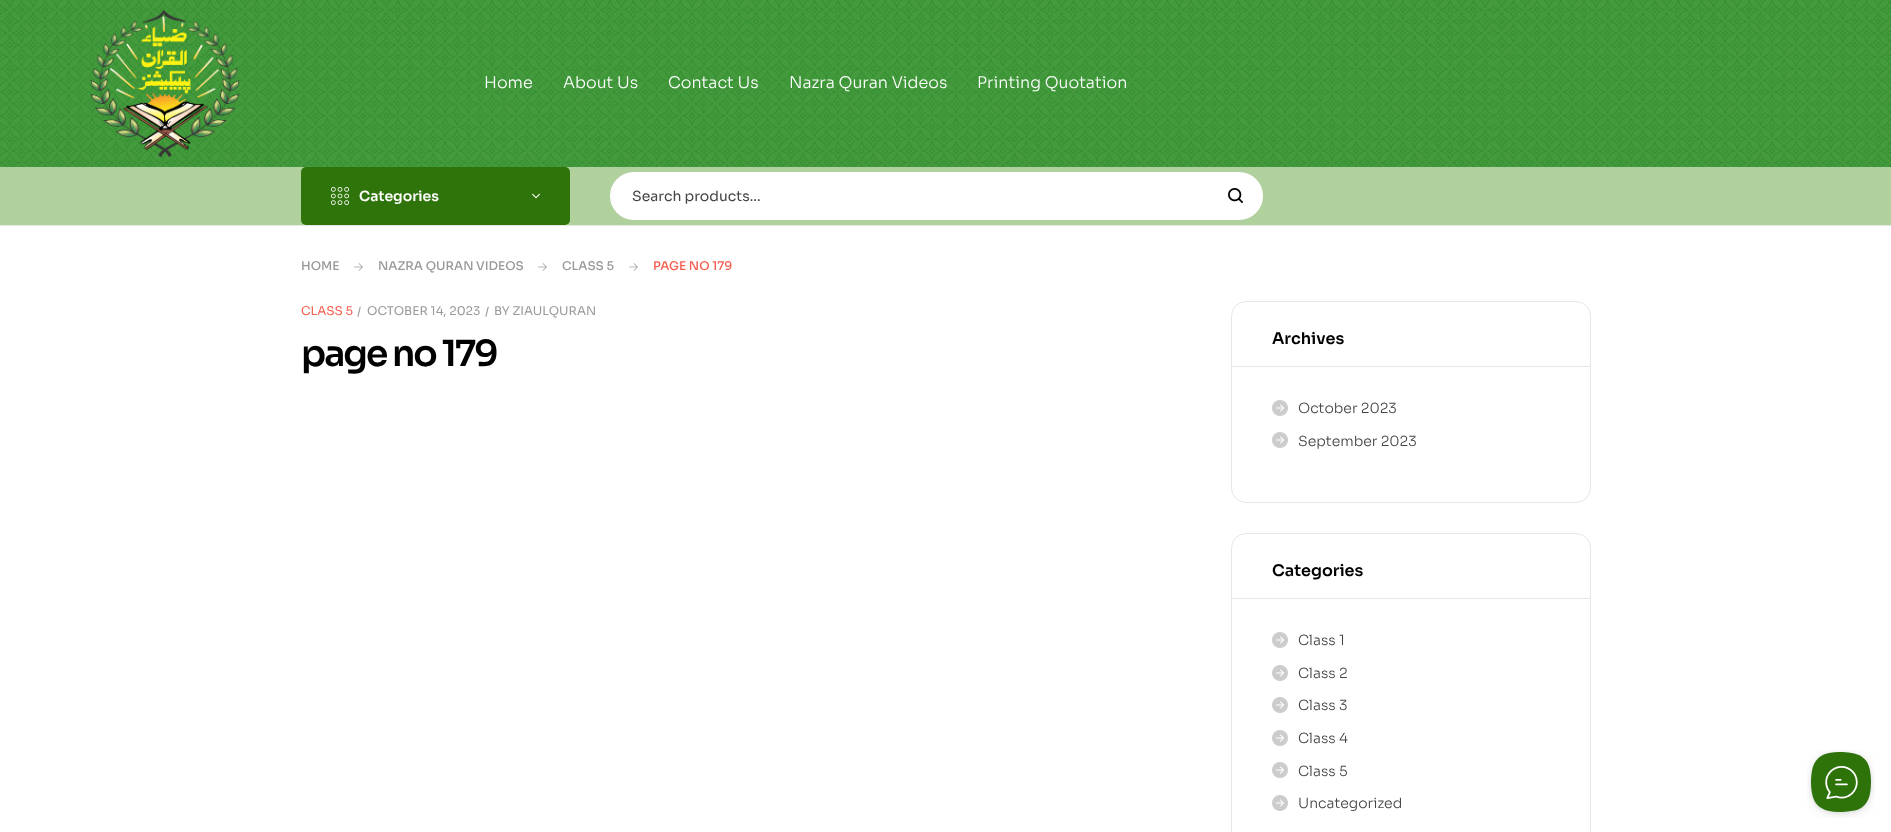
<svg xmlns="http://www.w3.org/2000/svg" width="1891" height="832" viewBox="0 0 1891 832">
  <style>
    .t1 { font: 300 16px Sora; fill: #fff; }
    .t2 { font: 600 14px Sora; fill: #fff; }
    .t3 { font: 14px Sora; fill: #444; }
    .t4 { font: 500 12px Sora; fill: #999; }
    .t5 { font: 500 12px Sora; fill: #f65d4e; }
    .t6 { font: 12px Sora; fill: #f65d4e; }
    .t7 { font: 12px Sora; fill: #999; }
    .t8 { font: 600 36px Sora; letter-spacing: -2px; fill: #000; }
    .t9 { font: 600 16px Sora; fill: #000; }
    .t10 { font: 300 14px Sora; fill: #444; }
  </style>
  <rect width="100%" height="100%" fill="#fff"/>
  <image x="0" y="0" width="1891" height="167" href="images/1.png"/>
  <image x="90" y="10" width="150" height="147" href="images/2.png"/>
  <text x="484" y="88" class="t1">Home</text>
  <text x="563" y="88" class="t1">About Us</text>
  <text x="668" y="88" class="t1">Contact Us</text>
  <text x="789" y="88" class="t1">Nazra Quran Videos</text>
  <text x="977" y="88" class="t1">Printing Quotation</text>
  <rect x="0" y="167" width="1891" height="58" fill="#b0d09e"/>
  <rect x="301" y="167" width="269" height="58" rx="5" fill="#2e740a"/>
  <image x="331" y="187" width="18" height="18" href="images/3.png"/>
  <text x="359" y="201" class="t2">Categories</text>
  <image x="532" y="193" width="8" height="6" href="images/4.png"/>
  <rect x="611" y="173" width="651" height="46" rx="23" fill="#fff" stroke="#fff" stroke-width="2"/>
  <text x="632" y="201" class="t3">Search products…</text>
  <image x="1228" y="188" width="15" height="15" href="images/5.png"/>
  <rect x="0" y="225" width="1891" height="1" fill="#e6e6e6"/>
  <text x="301" y="270" class="t4">HOME</text>
  <image x="354" y="263" width="9" height="8" href="images/6.png"/>
  <text x="378" y="270" class="t4">NAZRA QURAN VIDEOS</text>
  <image x="538" y="263" width="9" height="8" href="images/6.png"/>
  <text x="562" y="270" class="t4">CLASS 5</text>
  <image x="629" y="263" width="9" height="8" href="images/6.png"/>
  <text x="653" y="270" class="t5">PAGE NO 179</text>
  <text x="301" y="315" class="t6">CLASS 5</text>
  <text x="357" y="316" class="t7">/</text>
  <text x="367" y="315" class="t7">OCTOBER 14, 2023</text>
  <text x="485" y="316" class="t7">/</text>
  <text x="494" y="315" class="t7">BY ZIAULQURAN</text>
  <text x="301" y="366" class="t8">page no 179</text>
  <rect x="1231.5" y="301.5" width="359" height="201" rx="14.5" fill="none" stroke="#e6e6e6"/>
  <rect x="1232" y="366" width="358" height="1" fill="#e6e6e6"/>
  <text x="1272" y="344" class="t9">Archives</text>
  <image x="1272" y="400" width="16" height="16" href="images/7.png"/>
  <text x="1298" y="413" class="t10">October 2023</text>
  <image x="1272" y="432" width="16" height="16" href="images/7.png"/>
  <text x="1298" y="446" class="t10">September 2023</text>
  <rect x="1231.5" y="533.5" width="359" height="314" rx="14.5" fill="none" stroke="#e6e6e6"/>
  <rect x="1232" y="598" width="358" height="1" fill="#e6e6e6"/>
  <text x="1272" y="576" class="t9">Categories</text>
  <image x="1272" y="632" width="16" height="16" href="images/7.png"/>
  <text x="1298" y="645" class="t10">Class 1</text>
  <image x="1272" y="665" width="16" height="16" href="images/7.png"/>
  <text x="1298" y="678" class="t10">Class 2</text>
  <image x="1272" y="697" width="16" height="16" href="images/7.png"/>
  <text x="1298" y="710" class="t10">Class 3</text>
  <image x="1272" y="730" width="16" height="16" href="images/7.png"/>
  <text x="1298" y="743" class="t10">Class 4</text>
  <image x="1272" y="762" width="16" height="16" href="images/7.png"/>
  <text x="1298" y="776" class="t10">Class 5</text>
  <image x="1272" y="795" width="16" height="16" href="images/7.png"/>
  <text x="1298" y="808" class="t10">Uncategorized</text>
  <image x="1807" y="750" width="68" height="68" href="images/8.png"/>
</svg>
